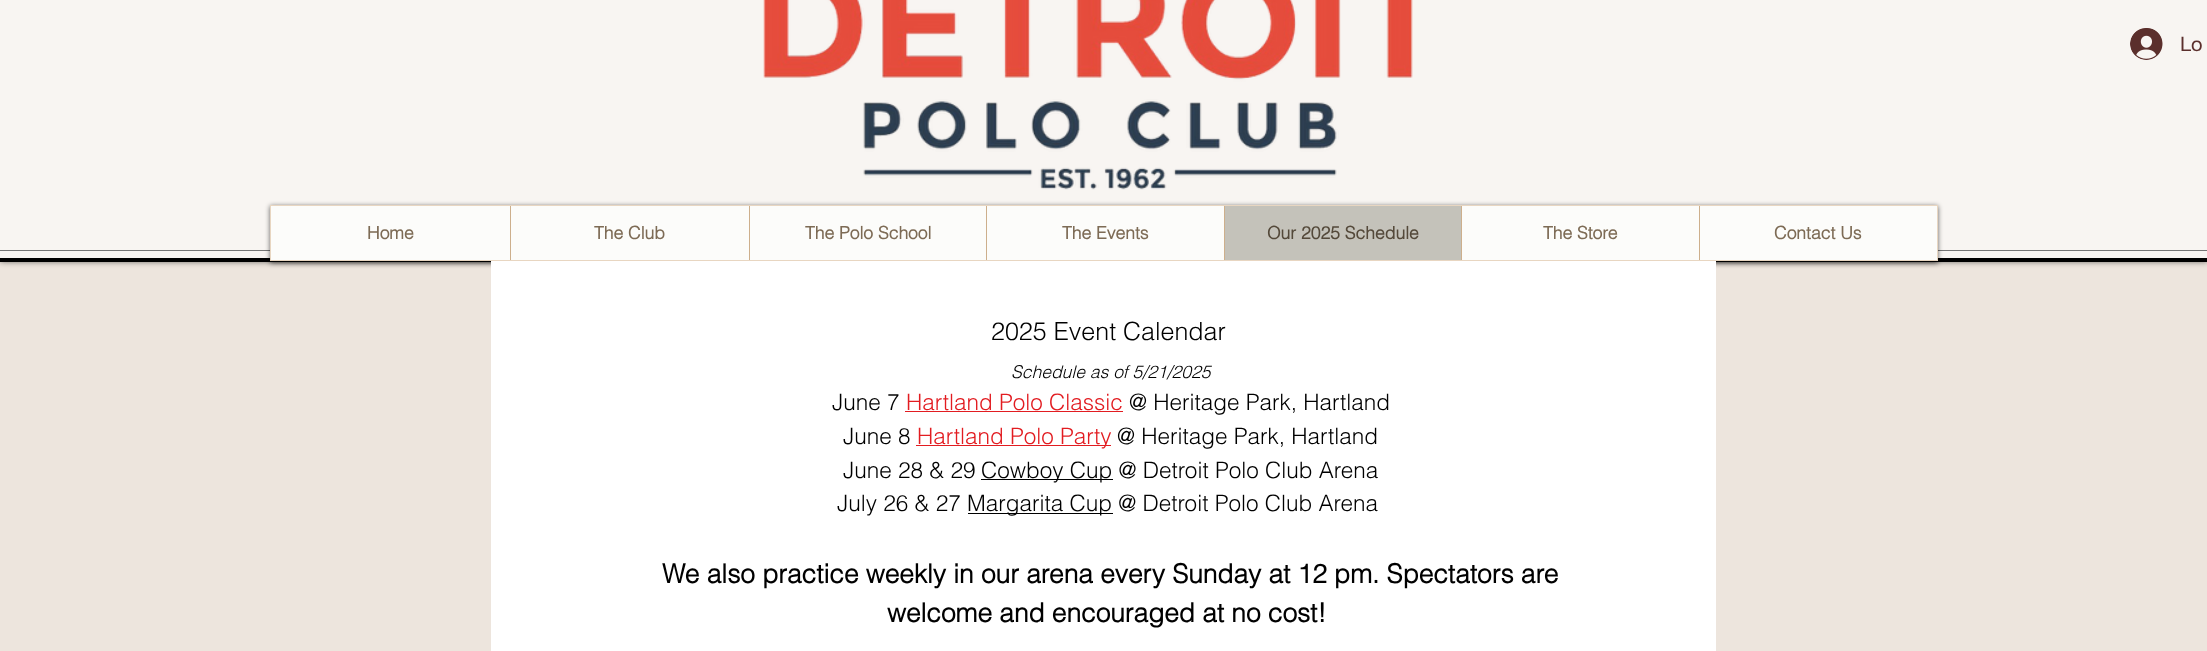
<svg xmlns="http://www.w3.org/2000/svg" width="2207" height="651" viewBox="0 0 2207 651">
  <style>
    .t1 { font: 20px helvetica neue; fill: #5b2f2c; }
    .t2 { font: bold 17.5px helvetica; fill: #7d6b55; }
    .t3 { font: bold 17.5px helvetica; fill: #54493a; }
    .t4 { font: 300 25px helvetica; fill: #000; }
    .t5 { font: italic 300 17.5px helvetica; fill: #000; }
    .t6 { font: 300 22.5px helvetica; fill: #000; }
    .t7 { font: 300 22.5px helvetica; fill: #e21c21; }
    .t8 { font: bold 26.25px helvetica; fill: #000; }
  </style>
  <rect width="100%" height="100%" fill="#ede5dd"/>
  <rect x="0" y="-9" width="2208" height="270" fill="#000000b3" filter="blur(3px)"/>
  <rect x="0" y="0" width="2207" height="258" fill="#f8f5f2"/>
  <image x="2130" y="28" width="33" height="32" href="images/1.png"/>
  <text x="2180" y="51" class="t1">Lo</text>
  <rect x="0" y="258" width="2207" height="4" fill="#000"/>
  <rect x="0" y="250" width="2207" height="1" fill="#757575"/>
  <image x="763" y="0" width="650" height="190" href="images/2.png"/>
  <rect x="270" y="206" width="1668" height="57" fill="#00000099" filter="blur(2.5px)"/>
  <rect x="270.5" y="205.5" width="1667" height="55" fill="#fcfcfa" stroke="#e8d6c1"/>
  <text x="367" y="239" class="t2">Home</text>
  <rect x="510" y="206" width="1" height="54" fill="#cdaf8c"/>
  <text x="594" y="239" class="t2">The Club</text>
  <rect x="749" y="206" width="1" height="54" fill="#cdaf8c"/>
  <text x="805" y="239" class="t2">The Polo School</text>
  <rect x="986" y="206" width="1" height="54" fill="#cdaf8c"/>
  <text x="1062" y="239" class="t2">The Events</text>
  <rect x="1225" y="206" width="236" height="54" fill="#c4c2ba"/>
  <rect x="1224" y="206" width="1" height="54" fill="#cdaf8c"/>
  <text x="1267" y="239" class="t3">Our 2025 Schedule</text>
  <rect x="1461" y="206" width="1" height="54" fill="#cdaf8c"/>
  <text x="1543" y="239" class="t2">The Store</text>
  <rect x="1699" y="206" width="1" height="54" fill="#cdaf8c"/>
  <text x="1774" y="239" class="t2">Contact Us</text>
  <rect x="491" y="261" width="1225" height="390" fill="#fff"/>
  <text x="991" y="340" class="t4">2025 Event Calendar</text>
  <text x="1011" y="378" class="t5">Schedule as of 5/21/2025</text>
  <text x="832" y="410" class="t6">June 7</text>
  <text x="906" y="410" class="t7">Hartland Polo Classic</text>
  <rect x="905" y="411" width="218" height="1" fill="#e21c21"/>
  <text x="1129" y="410" class="t6">@ Heritage Park, Hartland</text>
  <text x="843" y="444" class="t6">June 8</text>
  <rect x="916" y="445" width="195" height="1" fill="#e21c21"/>
  <text x="917" y="444" class="t7">Hartland Polo Party</text>
  <text x="1117" y="444" class="t6">@ Heritage Park, Hartland</text>
  <text x="843" y="478" class="t6">June 28 &amp; 29</text>
  <rect x="981" y="479" width="132" height="1" fill="#000"/>
  <text x="981" y="478" class="t6">Cowboy Cup @ Detroit Polo Club Arena</text>
  <text x="837" y="511" class="t6">July 26 &amp; 27</text>
  <rect x="968" y="513" width="145" height="1" fill="#000"/>
  <text x="967" y="511" class="t6">Margarita Cup @ Detroit Polo Club Arena</text>
  <text x="662" y="583" class="t8">We also practice weekly in our arena every Sunday at 12 pm. Spectators are</text>
  <text x="887" y="622" class="t8">welcome and encouraged at no cost!</text>
</svg>
